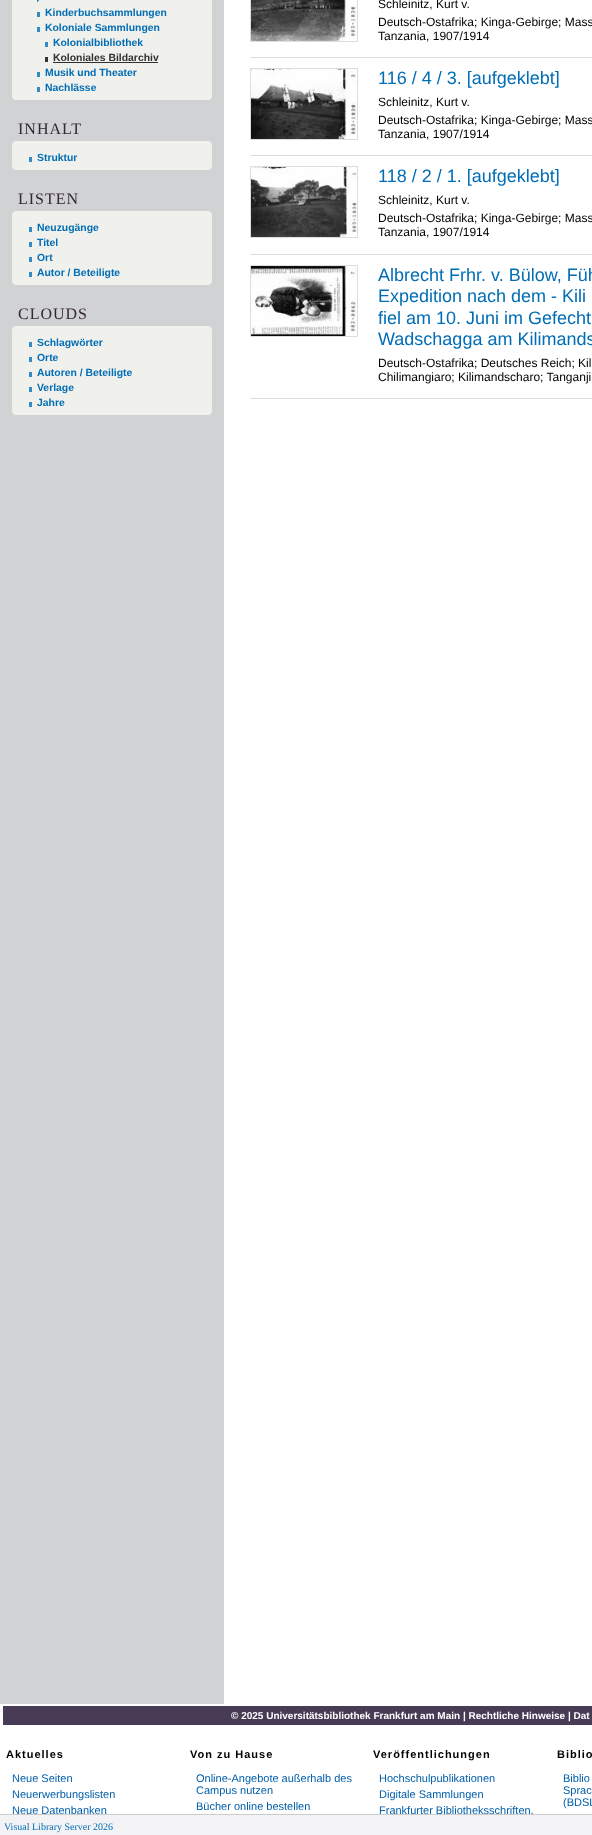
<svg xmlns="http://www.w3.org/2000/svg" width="592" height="1835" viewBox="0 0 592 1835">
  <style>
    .t1 { font: bold 10.4px Liberation Sans; fill: #006db5; }
    .t2 { font: bold 10.4px Liberation Sans; fill: #303030; }
    .t3 { font: 16px Liberation Serif; letter-spacing: 1px; fill: #332636; }
    .t4 { font: 12px Liberation Sans; fill: #000; }
    .t5 { font: 18px Liberation Sans; fill: #006db5; }
    .t6 { font: bold 10px Liberation Sans; fill: #fff; }
    .t7 { font: bold 11px Liberation Sans; letter-spacing: 1px; fill: #000; }
    .t8 { font: 11px Liberation Sans; fill: #005eaa; }
    .t9 { font: 10px Liberation Serif; fill: #006db5; }
  </style>
  <rect width="100%" height="100%" fill="#fff"/>
  <rect x="0" y="0" width="224" height="1704" fill="#d1d2d4"/>
  <rect x="12.5" y="-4.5" width="199" height="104" rx="3.5" fill="#f0f0ec" stroke="#f0f0ec"/>
  <image x="37" y="0" width="2" height="2" href="images/1.png"/>
  <rect x="37" y="12" width="3" height="5" fill="#318cc6"/>
  <text x="45" y="16" class="t1">Kinderbuchsammlungen</text>
  <rect x="37" y="27" width="3" height="5" fill="#318cc6"/>
  <text x="45" y="31" class="t1">Koloniale Sammlungen</text>
  <rect x="45" y="42" width="3" height="5" fill="#318cc6"/>
  <text x="53" y="46" class="t1">Kolonialbibliothek</text>
  <rect x="45" y="57" width="3" height="5" fill="#343434"/>
  <text x="53" y="61" class="t2">Koloniales Bildarchiv</text>
  <rect x="53" y="62" width="105" height="1" fill="#303030"/>
  <rect x="37" y="72" width="3" height="5" fill="#318cc6"/>
  <text x="45" y="76" class="t1">Musik und Theater</text>
  <rect x="37" y="87" width="3" height="5" fill="#318cc6"/>
  <text x="45" y="91" class="t1">Nachlässe</text>
  <text x="18" y="134" class="t3">INHALT</text>
  <rect x="12.5" y="141.5" width="199" height="28" rx="3.5" fill="#f0f0ec" stroke="#f0f0ec"/>
  <rect x="29" y="157" width="3" height="5" fill="#318cc6"/>
  <text x="37" y="161" class="t1">Struktur</text>
  <text x="18" y="204" class="t3">LISTEN</text>
  <rect x="12.5" y="211.5" width="199" height="73" rx="3.5" fill="#f0f0ec" stroke="#f0f0ec"/>
  <rect x="29" y="227" width="3" height="5" fill="#318cc6"/>
  <text x="37" y="231" class="t1">Neuzugänge</text>
  <rect x="29" y="242" width="3" height="5" fill="#318cc6"/>
  <text x="37" y="246" class="t1">Titel</text>
  <rect x="29" y="257" width="3" height="5" fill="#318cc6"/>
  <text x="37" y="261" class="t1">Ort</text>
  <rect x="29" y="272" width="3" height="5" fill="#318cc6"/>
  <text x="37" y="276" class="t1">Autor / Beteiligte</text>
  <text x="18" y="319" class="t3">CLOUDS</text>
  <rect x="12.5" y="326.5" width="199" height="88" rx="3.5" fill="#f0f0ec" stroke="#f0f0ec"/>
  <rect x="29" y="342" width="3" height="5" fill="#318cc6"/>
  <text x="37" y="346" class="t1">Schlagwörter</text>
  <rect x="29" y="357" width="3" height="5" fill="#318cc6"/>
  <text x="37" y="361" class="t1">Orte</text>
  <rect x="29" y="372" width="3" height="5" fill="#318cc6"/>
  <text x="37" y="376" class="t1">Autoren / Beteiligte</text>
  <rect x="29" y="387" width="3" height="5" fill="#318cc6"/>
  <text x="37" y="391" class="t1">Verlage</text>
  <rect x="29" y="402" width="3" height="5" fill="#318cc6"/>
  <text x="37" y="406" class="t1">Jahre</text>
  <rect x="250.5" y="-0.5" width="107" height="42" fill="none" stroke="#ddd"/>
  <image x="251" y="0" width="106" height="41" href="images/2.png"/>
  <text x="378" y="8" class="t4">Schleinitz, Kurt v.</text>
  <text x="378" y="26" class="t4">Deutsch-Ostafrika; Kinga-Gebirge; Mass</text>
  <text x="378" y="40" class="t4">Tanzania, 1907/1914</text>
  <rect x="250" y="57" width="342" height="1" fill="#ddd"/>
  <rect x="250.5" y="68.5" width="107" height="71" fill="none" stroke="#ddd"/>
  <image x="251" y="69" width="106" height="70" href="images/3.png"/>
  <text x="378" y="84" class="t5">116 / 4 / 3. [aufgeklebt]</text>
  <text x="378" y="106" class="t4">Schleinitz, Kurt v.</text>
  <text x="378" y="124" class="t4">Deutsch-Ostafrika; Kinga-Gebirge; Mass</text>
  <text x="378" y="138" class="t4">Tanzania, 1907/1914</text>
  <rect x="250" y="155" width="342" height="1" fill="#ddd"/>
  <rect x="250.5" y="166.5" width="107" height="71" fill="none" stroke="#ddd"/>
  <image x="251" y="167" width="106" height="70" href="images/4.png"/>
  <text x="378" y="182" class="t5">118 / 2 / 1. [aufgeklebt]</text>
  <text x="378" y="204" class="t4">Schleinitz, Kurt v.</text>
  <text x="378" y="222" class="t4">Deutsch-Ostafrika; Kinga-Gebirge; Mass</text>
  <text x="378" y="236" class="t4">Tanzania, 1907/1914</text>
  <rect x="250" y="254" width="342" height="1" fill="#ddd"/>
  <rect x="250" y="398" width="342" height="1" fill="#ddd"/>
  <rect x="250.5" y="265.5" width="107" height="71" fill="none" stroke="#ddd"/>
  <image x="251" y="266" width="106" height="70" href="images/5.png"/>
  <text x="378" y="281" class="t5">Albrecht Frhr. v. Bülow, Füh</text>
  <text x="378" y="302" class="t5">Expedition nach dem - Kili</text>
  <text x="378" y="324" class="t5">fiel am 10. Juni im Gefecht</text>
  <text x="378" y="345" class="t5">Wadschagga am Kilimands</text>
  <text x="378" y="367" class="t4">Deutsch-Ostafrika; Deutsches Reich; Kil</text>
  <text x="378" y="381" class="t4">Chilimangiaro; Kilimandscharo; Tanganji</text>
  <rect x="3" y="1706" width="589" height="19" fill="#483b56"/>
  <text x="231" y="1719" class="t6">© 2025 Universitätsbibliothek Frankfurt am Main | Rechtliche Hinweise | Dat</text>
  <text x="6" y="1758" class="t7">Aktuelles</text>
  <text x="12" y="1782" class="t8">Neue Seiten</text>
  <text x="12" y="1798" class="t8">Neuerwerbungslisten</text>
  <text x="12" y="1814" class="t8">Neue Datenbanken</text>
  <text x="190" y="1758" class="t7">Von zu Hause</text>
  <text x="196" y="1782" class="t8">Online-Angebote außerhalb des</text>
  <text x="196" y="1794" class="t8">Campus nutzen</text>
  <text x="196" y="1810" class="t8">Bücher online bestellen</text>
  <text x="373" y="1758" class="t7">Veröffentlichungen</text>
  <text x="379" y="1782" class="t8">Hochschulpublikationen</text>
  <text x="379" y="1798" class="t8">Digitale Sammlungen</text>
  <text x="379" y="1814" class="t8">Frankfurter Bibliotheksschriften,</text>
  <text x="557" y="1758" class="t7">Biblio</text>
  <text x="563" y="1782" class="t8">Biblio</text>
  <text x="563" y="1794" class="t8">Sprac</text>
  <text x="563" y="1806" class="t8">(BDSL</text>
  <rect x="0" y="1815" width="592" height="20" fill="#f3f3f6"/>
  <rect x="0" y="1814" width="592" height="1" fill="#ccc"/>
  <text x="4" y="1830" class="t9">Visual Library Server 2026</text>
</svg>
